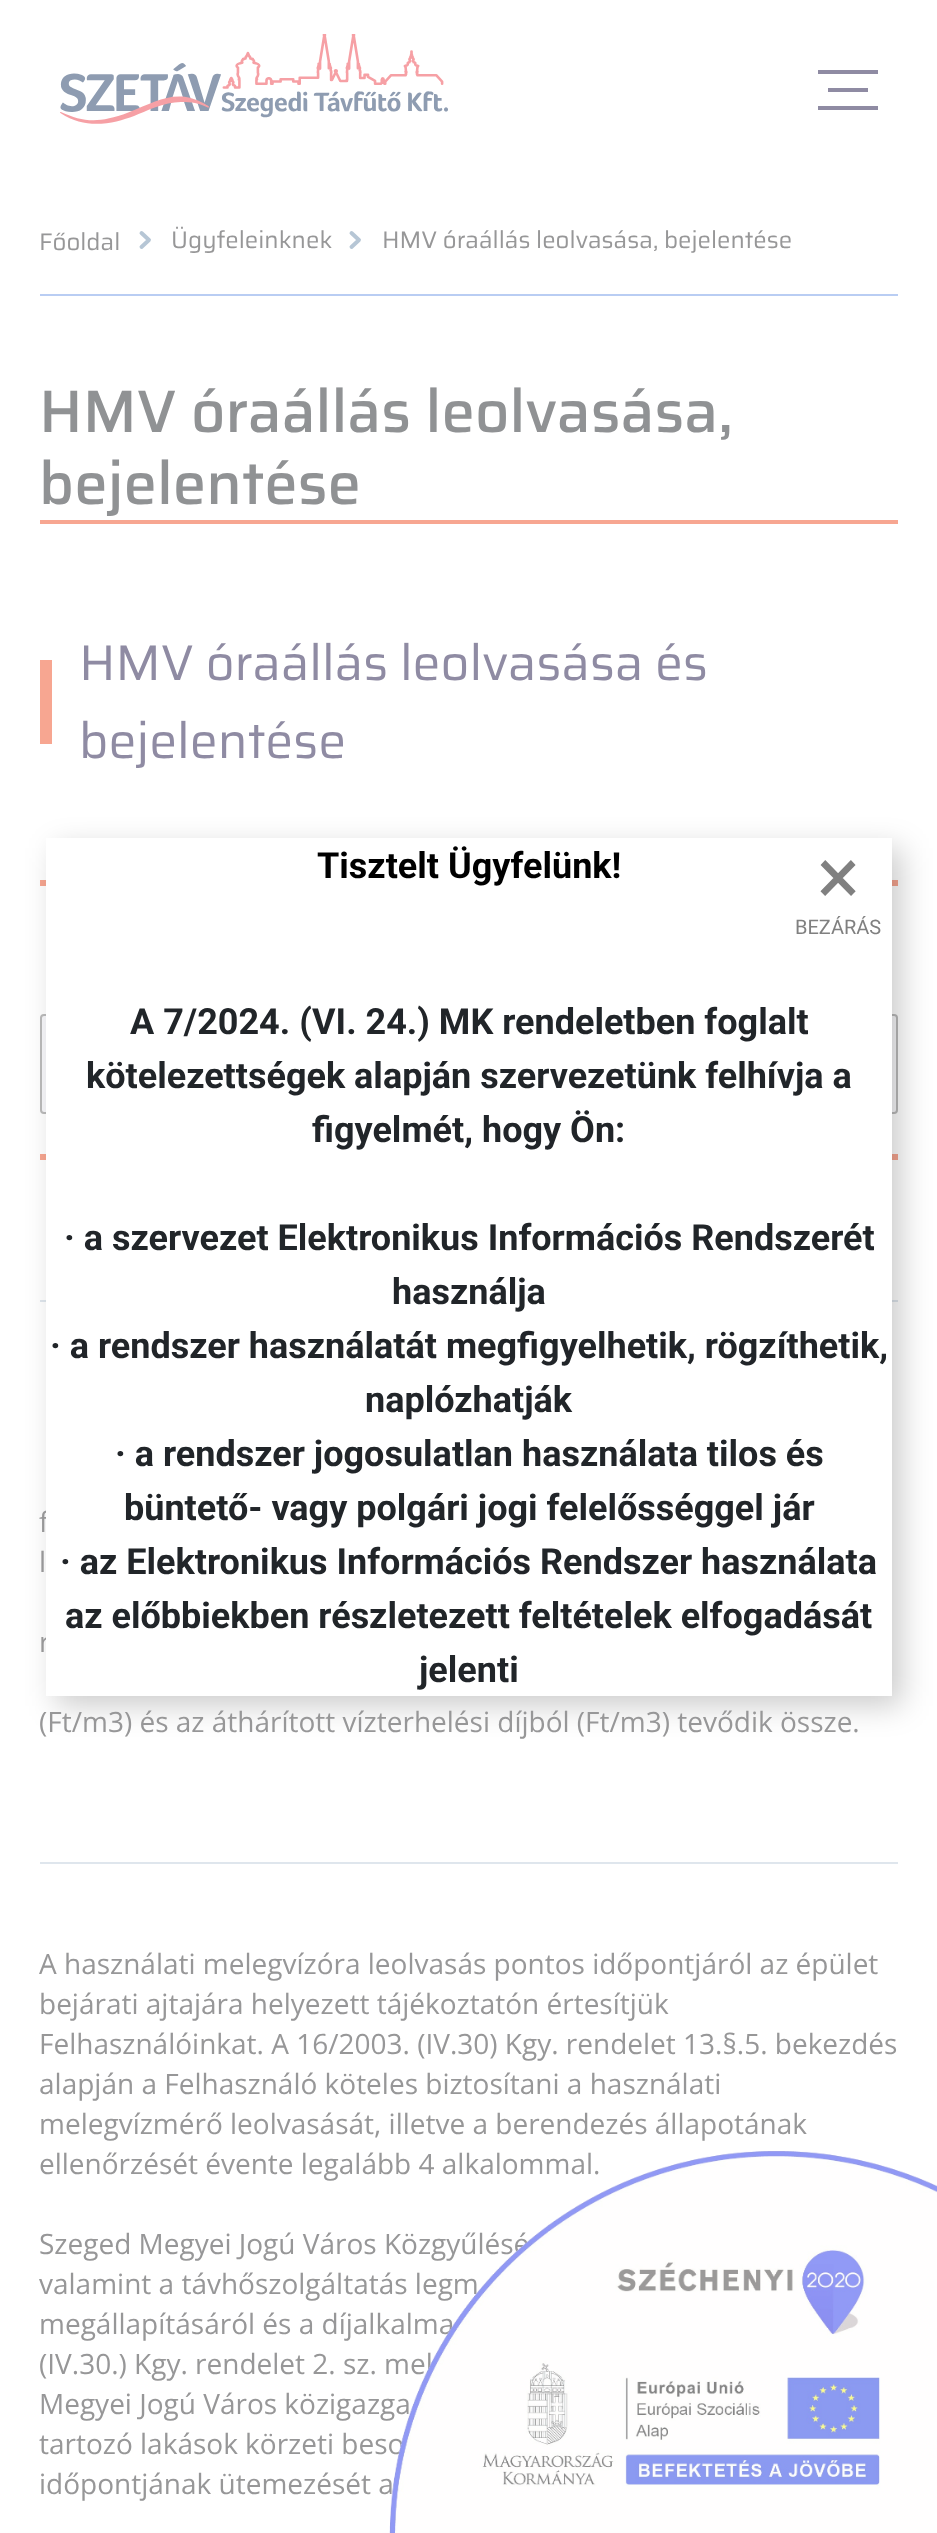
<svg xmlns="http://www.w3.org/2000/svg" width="937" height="2533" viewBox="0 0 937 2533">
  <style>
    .t1 { font: 24px Saira; fill: #979798; }
    .t2 { font: 500 60px Saira; fill: #909294; }
    .t3 { font: 50px Saira; fill: #8f8ba3; }
    .t4 { font: 28px Open Sans; fill: #979798; }
    .t5 { font: bold 36px Roboto; fill: #000; }
    .t6 { font: bold 36px Roboto; fill: #212529; }
    .t7 { font: 80px Roboto; fill: #808080; }
    .t8 { font: 20px Roboto; fill: #808080; }
  </style>
  <rect width="100%" height="100%" fill="#fff"/>
  <image x="60" y="34" width="388" height="90" href="images/1.png"/>
  <rect x="818" y="70" width="60" height="4" fill="#8f8ba3"/>
  <rect x="828" y="88" width="40" height="4" fill="#8f8ba3"/>
  <rect x="818" y="106" width="60" height="4" fill="#8f8ba3"/>
  <rect x="40" y="294" width="858" height="2" fill="#b9cdf3"/>
  <text x="39" y="250" class="t1">Főoldal</text>
  <path d="M141.5 233L149 240L141.5 247" fill="none" stroke="#b6c6d5" stroke-width="3.9" stroke-linecap="round" stroke-linejoin="round"/>
  <text x="171" y="248" class="t1">Ügyfeleinknek</text>
  <path d="M351.5 233L359 240L351.5 247" fill="none" stroke="#b6c6d5" stroke-width="3.9" stroke-linecap="round" stroke-linejoin="round"/>
  <text x="382" y="248" class="t1">HMV óraállás leolvasása, bejelentése</text>
  <rect x="40" y="520" width="858" height="4" fill="#f7a691"/>
  <text x="39" y="432" class="t2">HMV óraállás leolvasása,</text>
  <text x="39" y="504" class="t2">bejelentése</text>
  <rect x="40" y="660" width="12" height="84" fill="#f7a691"/>
  <text x="79" y="680" class="t3">HMV óraállás leolvasása és</text>
  <text x="79" y="758" class="t3">bejelentése</text>
  <rect x="40" y="880" width="858" height="6" fill="#f7a691"/>
  <rect x="40" y="1154" width="858" height="6" fill="#f7a691"/>
  <rect x="41" y="1015" width="856" height="98" rx="3" fill="#f8f8fb" stroke="#bbb" stroke-width="2"/>
  <rect x="40" y="1300" width="858" height="2" fill="#dfe6ed"/>
  <rect x="56" y="848" width="846" height="858" fill="#00000033" filter="blur(15px)"/>
  <text x="39" y="1532" class="t4">f</text>
  <text x="39" y="1652" class="t4">r</text>
  <rect x="46" y="838" width="846" height="858" fill="#fff"/>
  <text x="317" y="878" class="t5">Tisztelt Ügyfelünk!</text>
  <text x="130" y="1034" class="t6">A 7/2024. (VI. 24.) MK rendeletben foglalt</text>
  <text x="86" y="1088" class="t6">kötelezettségek alapján szervezetünk felhívja a</text>
  <text x="312" y="1142" class="t6">figyelmét, hogy Ön:</text>
  <text x="64" y="1250" class="t6">· a szervezet Elektronikus Információs Rendszerét</text>
  <text x="392" y="1304" class="t6">használja</text>
  <text x="50" y="1358" class="t6">· a rendszer használatát megfigyelhetik, rögzíthetik,</text>
  <text x="365" y="1412" class="t6">naplózhatják</text>
  <text x="115" y="1466" class="t6">· a rendszer jogosulatlan használata tilos és</text>
  <text x="124" y="1520" class="t6">büntető- vagy polgári jogi felelősséggel jár</text>
  <text x="60" y="1574" class="t6">· az Elektronikus Információs Rendszer használata</text>
  <text x="65" y="1628" class="t6">az előbbiekben részletezett feltételek elfogadását</text>
  <text x="419" y="1682" class="t6">jelenti</text>
  <text x="817" y="904" class="t7">×</text>
  <text x="795" y="934" class="t8">BEZÁRÁS</text>
  <rect x="40" y="1862" width="858" height="2" fill="#dfe6ed"/>
  <text x="39" y="1572" class="t4">l</text>
  <text x="39" y="1732" class="t4">(Ft/m3) és az áthárított vízterhelési díjból (Ft/m3) tevődik össze.</text>
  <text x="39" y="1974" class="t4">A használati melegvízóra leolvasás pontos időpontjáról az épület</text>
  <text x="39" y="2014" class="t4">bejárati ajtajára helyezett tájékoztatón értesítjük</text>
  <text x="39" y="2054" class="t4">Felhasználóinkat. A 16/2003. (IV.30) Kgy. rendelet 13.§.5. bekezdés</text>
  <text x="39" y="2094" class="t4">alapján a Felhasználó köteles biztosítani a használati</text>
  <text x="39" y="2134" class="t4">melegvízmérő leolvasását, illetve a berendezés állapotának</text>
  <text x="39" y="2174" class="t4">ellenőrzését évente legalább 4 alkalommal.</text>
  <text x="39" y="2254" class="t4">Szeged Megyei Jogú Város Közgyűlésé</text>
  <text x="39" y="2294" class="t4">valamint a távhőszolgáltatás legm</text>
  <text x="39" y="2334" class="t4">megállapításáról és a díjalkalma</text>
  <text x="39" y="2374" class="t4">(IV.30.) Kgy. rendelet 2. sz. mel</text>
  <text x="39" y="2414" class="t4">Megyei Jogú Város közigazga</text>
  <text x="39" y="2454" class="t4">tartozó lakások körzeti beso</text>
  <text x="39" y="2494" class="t4">időpontjának ütemezését a</text>
  <image x="389" y="2151" width="548" height="382" href="images/2.png"/>
</svg>
